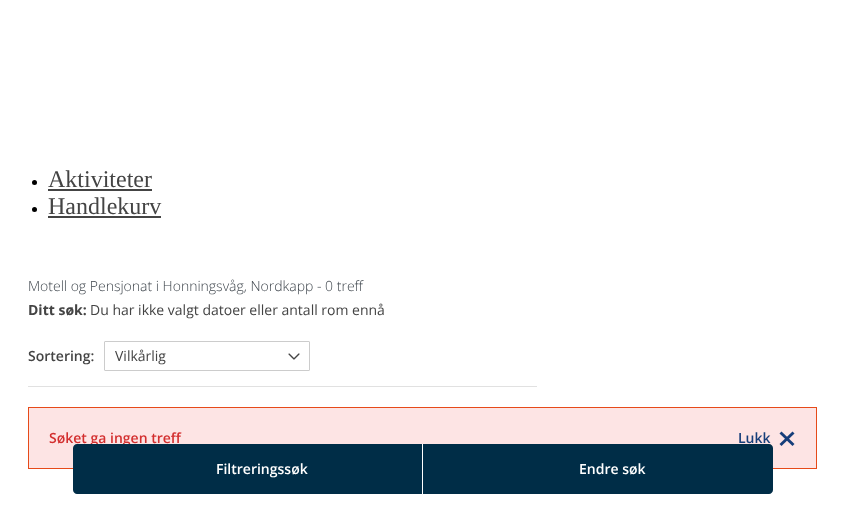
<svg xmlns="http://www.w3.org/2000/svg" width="845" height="514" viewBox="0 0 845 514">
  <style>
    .t1 { font: 24px Liberation Serif; fill: #444; }
    .t2 { font: 300 14px Open Sans; fill: #3e454c; }
    .t3 { font: bold 14px Open Sans; fill: #444; }
    .t4 { font: 14px Open Sans; fill: #444; }
    .t5 { font: 600 14px Open Sans; fill: #444; }
    .t6 { font: 600 14px Open Sans; fill: #d32f2f; }
    .t7 { font: 600 14px Open Sans; fill: #163e7a; }
    .t8 { font: 600 14px Open Sans; fill: #fff; }
  </style>
  <rect width="100%" height="100%" fill="#fff"/>
  <circle cx="34.5" cy="182.5" r="2.5" fill="#000"/>
  <text x="48" y="187" class="t1">Aktiviteter</text>
  <rect x="48" y="189" width="104" height="2" fill="#444"/>
  <circle cx="34.5" cy="209.5" r="2.5" fill="#000"/>
  <text x="48" y="214" class="t1">Handlekurv</text>
  <rect x="48" y="216" width="113" height="2" fill="#444"/>
  <text x="28" y="291" class="t2">Motell og Pensjonat i Honningsvåg, Nordkapp - 0 treff</text>
  <text x="28" y="315" class="t3">Ditt søk:</text>
  <text x="90" y="315" class="t4">Du har ikke valgt datoer eller antall rom ennå</text>
  <rect x="28" y="386" width="509" height="1" fill="#e1e1e1"/>
  <text x="28" y="361" class="t5">Sortering:</text>
  <image x="288" y="353" width="12" height="7" href="images/1.png"/>
  <rect x="104.5" y="341.5" width="205" height="29" rx="0.5" fill="none" stroke="#ccc"/>
  <text x="115" y="361" class="t4">Vilkårlig</text>
  <rect x="28.5" y="407.5" width="788" height="61" fill="#fde4e4" stroke="#e64a19"/>
  <text x="49" y="443" class="t6">Søket ga ingen treff</text>
  <path d="M781.5 431.5L794.5 444L792.5 446L779.5 433.5Z" fill="#163e7a"/>
  <text x="738" y="443" class="t7">Lukk</text>
  <path d="M779.5 444L792.5 431.5L794.5 433.5L781.5 446Z" fill="#163e7a"/>
  <path d="M77 444H422V494H77C75 494 73 492 73 490V448C73 446 75 444 77 444Z" fill="#002d47"/>
  <text x="216" y="474" class="t8">Filtreringssøk</text>
  <path d="M422 444H769C771 444 773 446 773 448V490C773 492 771 494 769 494H422Z" fill="#002d47"/>
  <rect x="422" y="444" width="1" height="50" fill="#fff"/>
  <text x="579" y="474" class="t8">Endre søk</text>
</svg>
